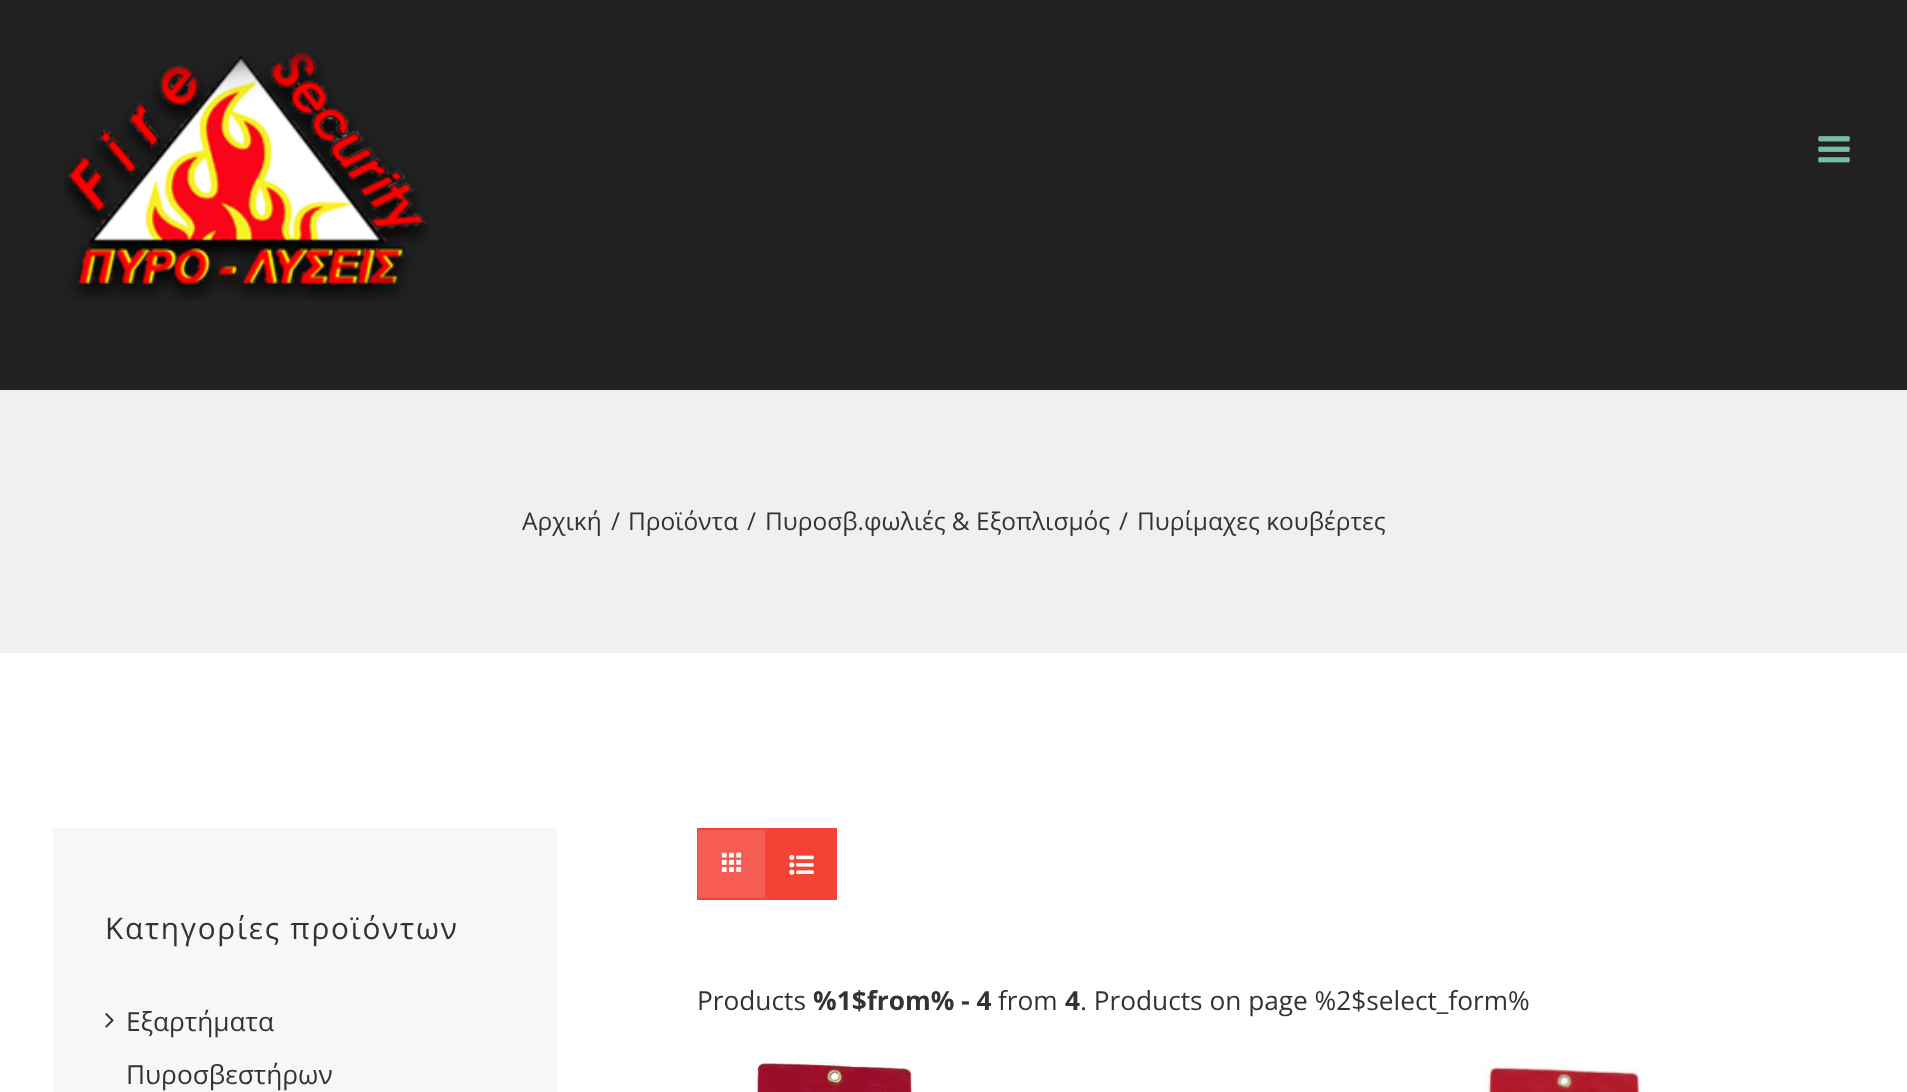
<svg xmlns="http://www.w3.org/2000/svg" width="1907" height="1092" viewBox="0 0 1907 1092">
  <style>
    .t1 { font: 24.5px Open Sans; fill: #333; }
    .t2 { font: 29.75px Open Sans; letter-spacing: 1.75px; fill: #333; }
    .t3 { font: 26.25px Open Sans; fill: #333; }
    .t4 { font: bold 26.25px Open Sans; fill: #333; }
  </style>
  <rect width="100%" height="100%" fill="#fff"/>
  <rect x="0" y="0" width="1907" height="390" fill="#212121"/>
  <image x="63" y="51" width="366" height="250" href="images/1.png"/>
  <image x="1818" y="136" width="32" height="27" href="images/2.png"/>
  <rect x="0" y="390" width="1907" height="263" fill="#f0f0f0"/>
  <text x="522" y="530" class="t1">Αρχική</text>
  <text x="611" y="530" class="t1">/</text>
  <text x="628" y="530" class="t1">Προϊόντα</text>
  <text x="747" y="530" class="t1">/</text>
  <text x="765" y="530" class="t1">Πυροσβ.φωλιές &amp; Εξοπλισμός</text>
  <text x="1119" y="530" class="t1">/</text>
  <text x="1137" y="530" class="t1">Πυρίμαχες κουβέρτες</text>
  <rect x="53" y="828" width="504" height="264" fill="#f7f7f7"/>
  <text x="105" y="939" class="t2">Κατηγορίες προϊόντων</text>
  <image x="105" y="1013" width="9" height="15" href="images/3.png"/>
  <text x="126" y="1031" class="t3">Εξαρτήματα</text>
  <text x="126" y="1084" class="t3">Πυρoσβεστήρων</text>
  <rect x="698" y="829" width="138" height="70" fill="none" stroke="#f44336" stroke-width="2"/>
  <rect x="698" y="830" width="67" height="68" fill="#f65c51"/>
  <rect x="765" y="830" width="70" height="68" fill="#f44336"/>
  <image x="721" y="852" width="21" height="20" href="images/4.png"/>
  <image x="789" y="854" width="25" height="21" href="images/5.png"/>
  <text x="697" y="1010" class="t3">Products</text>
  <text x="813" y="1010" class="t4">%1$from% - 4</text>
  <text x="998" y="1010" class="t3">from</text>
  <text x="1065" y="1010" class="t4">4</text>
  <text x="1080" y="1010" class="t3">. Products on page %2$select_form%</text>
  <image x="755" y="1063" width="160" height="29" href="images/6.png"/>
  <image x="1482" y="1067" width="158" height="25" href="images/7.png"/>
</svg>
